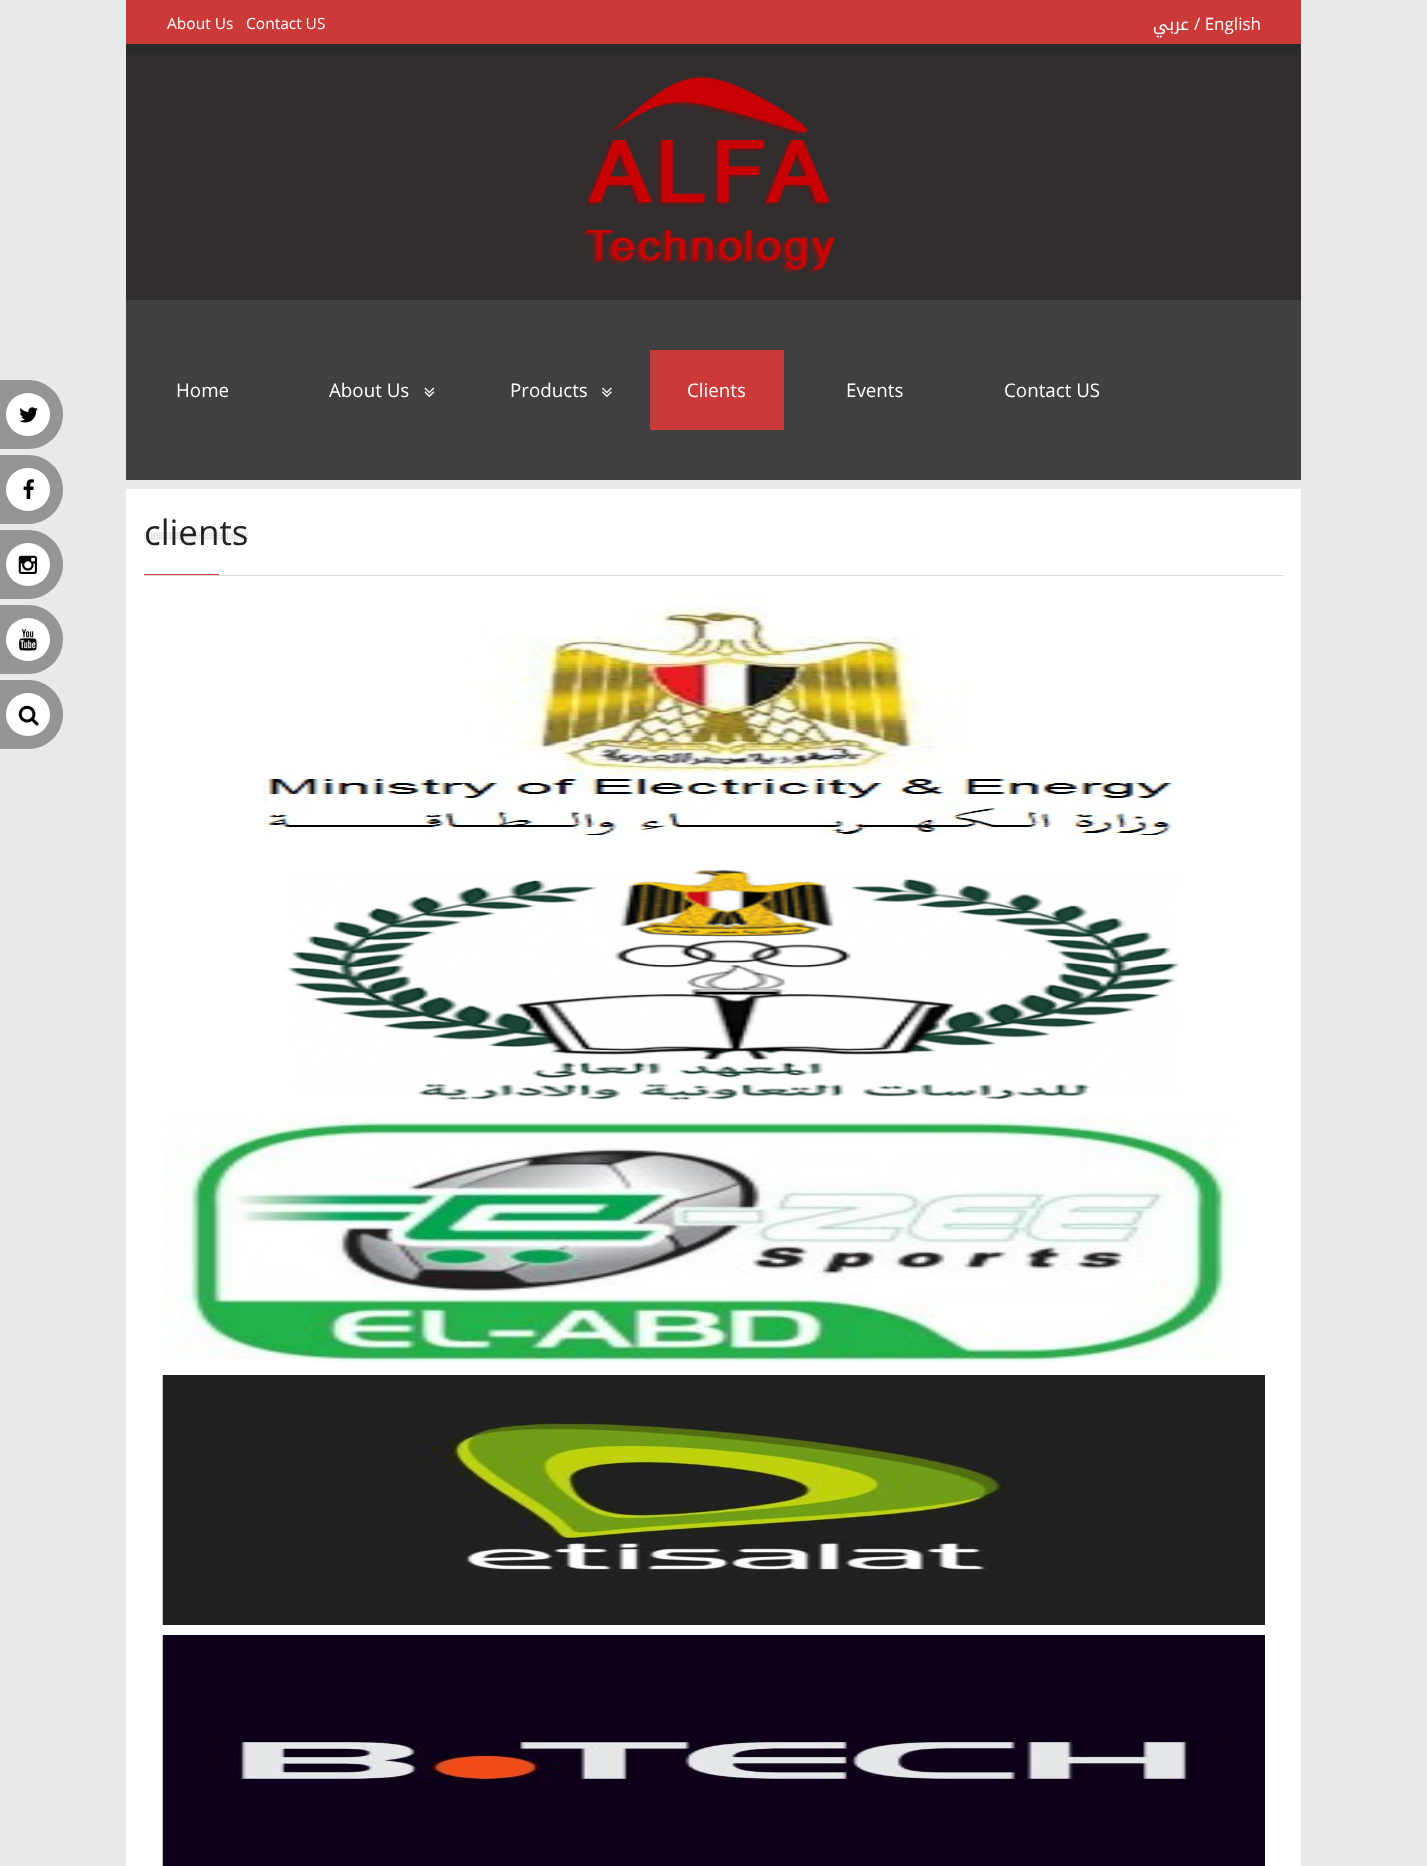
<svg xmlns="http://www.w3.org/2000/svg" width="1427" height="1866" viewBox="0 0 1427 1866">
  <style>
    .t1 { font: 15.5px Open Sans; fill: #fff; }
    .t2 { font: 17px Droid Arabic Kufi; direction: rtl; fill: #fff; }
    .t3 { font: 17px Open Sans; fill: #fff; }
    .t4 { font: 18.75px Open Sans; fill: #fff; }
    .t5 { font: 35px Open Sans; fill: #222; }
  </style>
  <rect width="100%" height="100%" fill="#e9e9e9"/>
  <path d="M-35 380H28.5C47.5 380 63 395.5 63 414.5C63 433.5 47.5 449 28.5 449H-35Z" fill="#959595"/>
  <rect x="6" y="393" width="44" height="43" rx="21.5" fill="#fff"/>
  <image x="19" y="407" width="19" height="16" href="images/1.png"/>
  <path d="M-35 455H28.5C47.5 455 63 470.5 63 489.5C63 508.5 47.5 524 28.5 524H-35Z" fill="#959595"/>
  <rect x="6" y="468" width="44" height="43" rx="21.5" fill="#fff"/>
  <image x="23" y="479" width="11" height="20" href="images/2.png"/>
  <path d="M-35 530H28.5C47.5 530 63 545.5 63 564.5C63 583.5 47.5 599 28.5 599H-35Z" fill="#959595"/>
  <rect x="6" y="543" width="44" height="43" rx="21.5" fill="#fff"/>
  <image x="18" y="555" width="19" height="19" href="images/3.png"/>
  <path d="M-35 605H28.5C47.5 605 63 620.5 63 639.5C63 658.5 47.5 674 28.5 674H-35Z" fill="#959595"/>
  <rect x="6" y="618" width="44" height="43" rx="21.5" fill="#fff"/>
  <image x="19" y="629" width="18" height="22" href="images/4.png"/>
  <path d="M-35 680H28.5C47.5 680 63 695.5 63 714.5C63 733.5 47.5 749 28.5 749H-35Z" fill="#959595"/>
  <rect x="6" y="693" width="44" height="43" rx="21.5" fill="#fff"/>
  <image x="18" y="705" width="21" height="21" href="images/5.png"/>
  <rect x="126" y="44" width="1175" height="10" fill="#2b2b2b"/>
  <rect x="126" y="0" width="1175" height="44" fill="#cb3939"/>
  <text x="167" y="29" class="t1">About Us</text>
  <text x="246" y="29" class="t1">Contact US</text>
  <text x="1189" y="30" class="t2">عربي</text>
  <text x="1194" y="30" class="t3">/ English</text>
  <rect x="126" y="54" width="1175" height="246" fill="#322e2e"/>
  <image x="581" y="77" width="255" height="197" href="images/6.png"/>
  <rect x="126" y="300" width="1175" height="180" fill="#404040"/>
  <text x="176" y="397" class="t4">Home</text>
  <text x="329" y="397" class="t4">About Us</text>
  <image x="424" y="387" width="11" height="10" href="images/7.png"/>
  <text x="510" y="397" class="t4">Products</text>
  <image x="602" y="387" width="10" height="10" href="images/8.png"/>
  <rect x="650" y="350" width="134" height="80" fill="#cb3939"/>
  <text x="687" y="397" class="t4">Clients</text>
  <text x="846" y="397" class="t4">Events</text>
  <text x="1004" y="397" class="t4">Contact US</text>
  <rect x="126" y="489" width="1175" height="1377" fill="#fff"/>
  <rect x="144" y="575" width="1140" height="1" fill="#ddd"/>
  <image x="143" y="532" width="106" height="8" href="images/9.png"/>
  <text x="144" y="545" class="t5">clients</text>
  <rect x="144" y="574" width="75" height="1" fill="#cb3939"/>
  <image x="262" y="595" width="912" height="241" href="images/10.png"/>
  <image x="285" y="869" width="896" height="231" href="images/11.png"/>
  <image x="163" y="1115" width="1076" height="247" href="images/12.png"/>
  <image x="162" y="1375" width="1103" height="250" href="images/13.png"/>
  <image x="162" y="1635" width="1103" height="231" href="images/14.png"/>
</svg>
